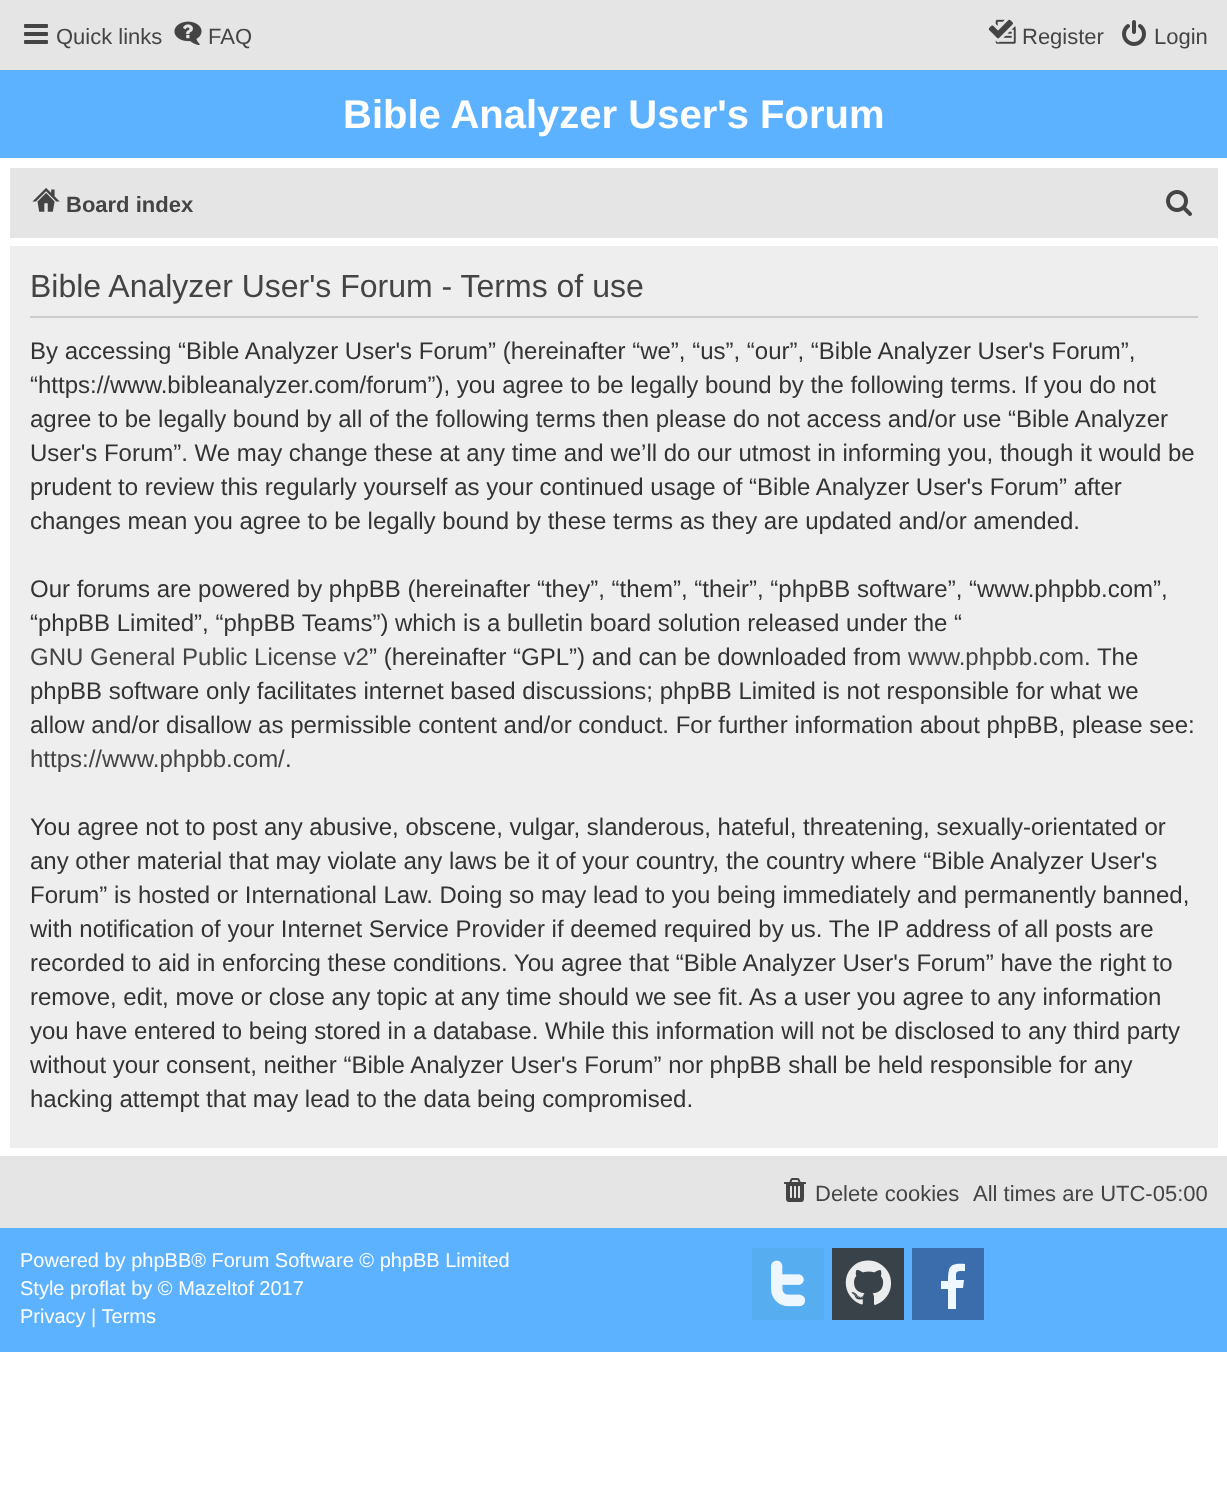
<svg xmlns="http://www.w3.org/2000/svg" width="1227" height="1500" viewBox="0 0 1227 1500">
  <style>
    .t1 { font: 22px Liberation Sans; fill: #444; }
    .t2 { font: bold 40px Liberation Sans; fill: #fff; }
    .t3 { font: bold 22px Liberation Sans; fill: #444; }
    .t4 { font: 32px Liberation Sans; fill: #444; }
    .t5 { font: 24px Liberation Sans; fill: #333; }
    .t6 { font: 24px Liberation Sans; fill: #444; }
    .t7 { font: 20px Liberation Sans; fill: #fff; }
  </style>
  <rect width="100%" height="100%" fill="#fff"/>
  <rect x="0" y="0" width="1227" height="70" fill="#e5e5e5"/>
  <image x="24" y="24" width="24" height="20" href="images/1.png"/>
  <text x="56" y="44" class="t1">Quick links</text>
  <image x="174" y="21" width="28" height="24" href="images/2.png"/>
  <text x="208" y="44" class="t1">FAQ</text>
  <image x="988" y="19" width="28" height="25" href="images/3.png"/>
  <text x="1022" y="44" class="t1">Register</text>
  <image x="1122" y="20" width="24" height="26" href="images/4.png"/>
  <text x="1154" y="44" class="t1">Login</text>
  <rect x="0" y="70" width="1227" height="88" fill="#5db2ff"/>
  <text x="343" y="128" class="t2">Bible Analyzer User's Forum</text>
  <rect x="10" y="168" width="1208" height="70" fill="#e5e5e5"/>
  <image x="32" y="188" width="28" height="24" href="images/5.png"/>
  <text x="66" y="212" class="t3">Board index</text>
  <image x="1166" y="190" width="26" height="26" href="images/6.png"/>
  <rect x="10" y="246" width="1208" height="902" fill="#eee"/>
  <rect x="30" y="316" width="1168" height="2" fill="#ccc"/>
  <text x="30" y="297" class="t4">Bible Analyzer User's Forum - Terms of use</text>
  <text x="30" y="359" class="t5">By accessing “Bible Analyzer User's Forum” (hereinafter “we”, “us”, “our”, “Bible Analyzer User's Forum”,</text>
  <text x="30" y="393" class="t5">“https://www.bibleanalyzer.com/forum”), you agree to be legally bound by the following terms. If you do not</text>
  <text x="30" y="427" class="t5">agree to be legally bound by all of the following terms then please do not access and/or use “Bible Analyzer</text>
  <text x="30" y="461" class="t5">User's Forum”. We may change these at any time and we’ll do our utmost in informing you, though it would be</text>
  <text x="30" y="495" class="t5">prudent to review this regularly yourself as your continued usage of “Bible Analyzer User's Forum” after</text>
  <text x="30" y="529" class="t5">changes mean you agree to be legally bound by these terms as they are updated and/or amended.</text>
  <text x="30" y="597" class="t5">Our forums are powered by phpBB (hereinafter “they”, “them”, “their”, “phpBB software”, “www.phpbb.com”,</text>
  <text x="30" y="631" class="t5">“phpBB Limited”, “phpBB Teams”) which is a bulletin board solution released under the “</text>
  <text x="30" y="665" class="t6">GNU General Public License v2</text>
  <text x="369" y="665" class="t5">” (hereinafter “GPL”) and can be downloaded from</text>
  <text x="908" y="665" class="t6">www.phpbb.com</text>
  <text x="1084" y="665" class="t5">. The</text>
  <text x="30" y="699" class="t5">phpBB software only facilitates internet based discussions; phpBB Limited is not responsible for what we</text>
  <text x="30" y="733" class="t5">allow and/or disallow as permissible content and/or conduct. For further information about phpBB, please see:</text>
  <text x="30" y="767" class="t6">https://www.phpbb.com/</text>
  <text x="285" y="767" class="t5">.</text>
  <text x="30" y="835" class="t5">You agree not to post any abusive, obscene, vulgar, slanderous, hateful, threatening, sexually-orientated or</text>
  <text x="30" y="869" class="t5">any other material that may violate any laws be it of your country, the country where “Bible Analyzer User's</text>
  <text x="30" y="903" class="t5">Forum” is hosted or International Law. Doing so may lead to you being immediately and permanently banned,</text>
  <text x="30" y="937" class="t5">with notification of your Internet Service Provider if deemed required by us. The IP address of all posts are</text>
  <text x="30" y="971" class="t5">recorded to aid in enforcing these conditions. You agree that “Bible Analyzer User's Forum” have the right to</text>
  <text x="30" y="1005" class="t5">remove, edit, move or close any topic at any time should we see fit. As a user you agree to any information</text>
  <text x="30" y="1039" class="t5">you have entered to being stored in a database. While this information will not be disclosed to any third party</text>
  <text x="30" y="1073" class="t5">without your consent, neither “Bible Analyzer User's Forum” nor phpBB shall be held responsible for any</text>
  <text x="30" y="1107" class="t5">hacking attempt that may lead to the data being compromised.</text>
  <rect x="0" y="1156" width="1227" height="72" fill="#e5e5e5"/>
  <image x="784" y="1178" width="22" height="24" href="images/7.png"/>
  <text x="815" y="1201" class="t1">Delete cookies</text>
  <text x="973" y="1201" class="t1">All times are UTC-05:00</text>
  <rect x="0" y="1228" width="1227" height="124" fill="#5db2ff"/>
  <text x="20" y="1267" class="t7">Powered by phpBB® Forum Software © phpBB Limited</text>
  <text x="20" y="1295" class="t7">Style proflat by © Mazeltof 2017</text>
  <text x="20" y="1323" class="t7">Privacy | Terms</text>
  <rect x="752" y="1248" width="72" height="72" fill="#56adf0"/>
  <image x="771" y="1260" width="35" height="47" href="images/8.png"/>
  <rect x="832" y="1248" width="72" height="72" fill="#394249"/>
  <image x="845" y="1260" width="47" height="45" href="images/9.png"/>
  <rect x="912" y="1248" width="72" height="72" fill="#3b6dac"/>
  <path d="M965 1264V1271C955 1271 956 1271 956 1280H964L963 1288H956V1309H948V1289H941V1281H948C948 1266 950 1263 965 1264Z" fill="#eff7ff"/>
</svg>
